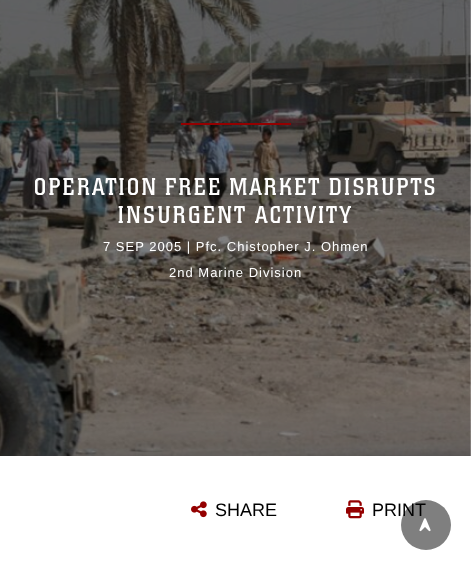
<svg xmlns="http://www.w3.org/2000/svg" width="471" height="570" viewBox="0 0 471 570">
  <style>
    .t1 { font: 24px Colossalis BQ; letter-spacing: 2px; fill: #fff; }
    .t2 { font: 13px Liberation Sans; letter-spacing: 1px; fill: #fff; }
    .t3 { font: 18px Liberation Sans; fill: #000; }
  </style>
  <rect width="100%" height="100%" fill="#fff"/>
  <image x="0" y="0" width="471" height="456" href="images/1.png"/>
  <rect x="181" y="123" width="110" height="2" fill="#940000"/>
  <text x="34" y="195" class="t1">OPERATION FREE MARKET DISRUPTS</text>
  <text x="118" y="223" class="t1">INSURGENT ACTIVITY</text>
  <text x="103" y="251" class="t2">7 SEP 2005 | Pfc. Chistopher J. Ohmen</text>
  <text x="169" y="277" class="t2">2nd Marine Division</text>
  <image x="191" y="501" width="16" height="17" href="images/2.png"/>
  <text x="215" y="516" class="t3">SHARE</text>
  <image x="346" y="500" width="18" height="19" href="images/3.png"/>
  <text x="372" y="516" class="t3">PRINT</text>
  <circle cx="426" cy="525" r="25" fill="#00000080"/>
  <image x="419" y="518" width="12" height="14" href="images/4.png"/>
</svg>
